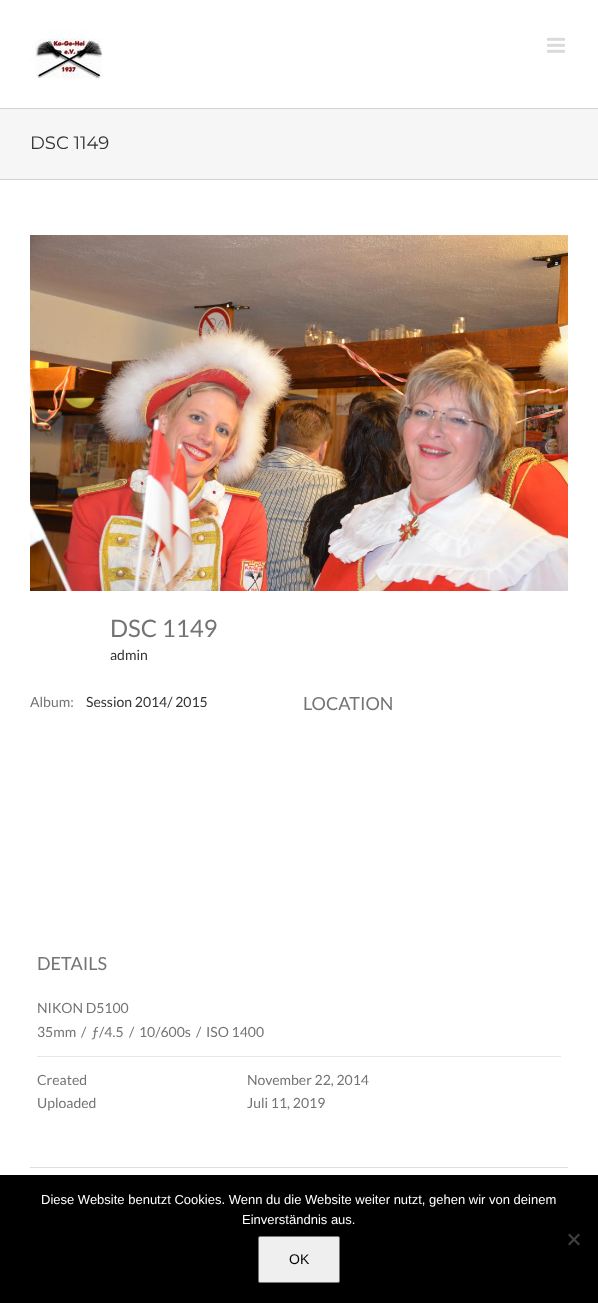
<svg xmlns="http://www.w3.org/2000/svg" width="598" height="1303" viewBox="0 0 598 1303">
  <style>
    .t1 { font: 18px Montserrat; fill: #333; }
    .t2 { font: 24px Lato; fill: #747474; }
    .t3 { font: 14px Lato; fill: #333; }
    .t4 { font: 14px Lato; fill: #747474; }
    .t5 { font: 18px Lato; fill: #747474; }
    .t6 { font: 13px Liberation Sans; fill: #fff; }
    .t7 { font: 14px Liberation Sans; fill: #000; }
  </style>
  <rect width="100%" height="100%" fill="#fff"/>
  <image x="30" y="30" width="72" height="49" href="images/1.png"/>
  <image x="547" y="37" width="18" height="16" href="images/2.png"/>
  <rect x="0" y="109" width="598" height="70" fill="#f6f6f6"/>
  <rect x="0" y="108" width="598" height="1" fill="#d2d3d4"/>
  <rect x="0" y="179" width="598" height="1" fill="#d2d3d4"/>
  <text x="30" y="149" class="t1">DSC 1149</text>
  <image x="30" y="235" width="538" height="356" href="images/3.png"/>
  <text x="110" y="637" class="t2">DSC 1149</text>
  <text x="110" y="660" class="t3">admin</text>
  <text x="30" y="707" class="t4">Album:</text>
  <text x="86" y="707" class="t3">Session 2014/ 2015</text>
  <text x="303" y="710" class="t5">LOCATION</text>
  <text x="37" y="970" class="t5">DETAILS</text>
  <rect x="37" y="1056" width="524" height="1" fill="#e6e6e6"/>
  <text x="37" y="1013" class="t4">NIKON D5100</text>
  <text x="37" y="1037" class="t4">35mm</text>
  <text x="81" y="1037" class="t4">/</text>
  <text x="91" y="1037" class="t4">ƒ/4.5</text>
  <text x="129" y="1037" class="t4">/</text>
  <text x="139" y="1037" class="t4">10/600s</text>
  <text x="196" y="1037" class="t4">/</text>
  <text x="206" y="1037" class="t4">ISO 1400</text>
  <text x="37" y="1085" class="t4">Created</text>
  <text x="247" y="1085" class="t4">November 22, 2014</text>
  <text x="37" y="1108" class="t4">Uploaded</text>
  <text x="247" y="1108" class="t4">Juli 11, 2019</text>
  <rect x="30" y="1167" width="538" height="1" fill="#e0dede"/>
  <rect x="0" y="1175" width="598" height="128" fill="#000"/>
  <text x="41" y="1204" class="t6">Diese Website benutzt Cookies. Wenn du die Website weiter nutzt, gehen wir von deinem</text>
  <text x="242" y="1224" class="t6">Einverständnis aus.</text>
  <path d="M578.5 1233.5L580 1235L569.5 1245.5L568 1244Z" fill="#404040"/>
  <path d="M568 1235L569.5 1233.5L580 1244L578.5 1245.5Z" fill="#404040"/>
  <rect x="258.5" y="1236.5" width="81" height="46" rx="1.5" fill="#efefef" stroke="#767676"/>
  <text x="289" y="1264" class="t7">OK</text>
</svg>
